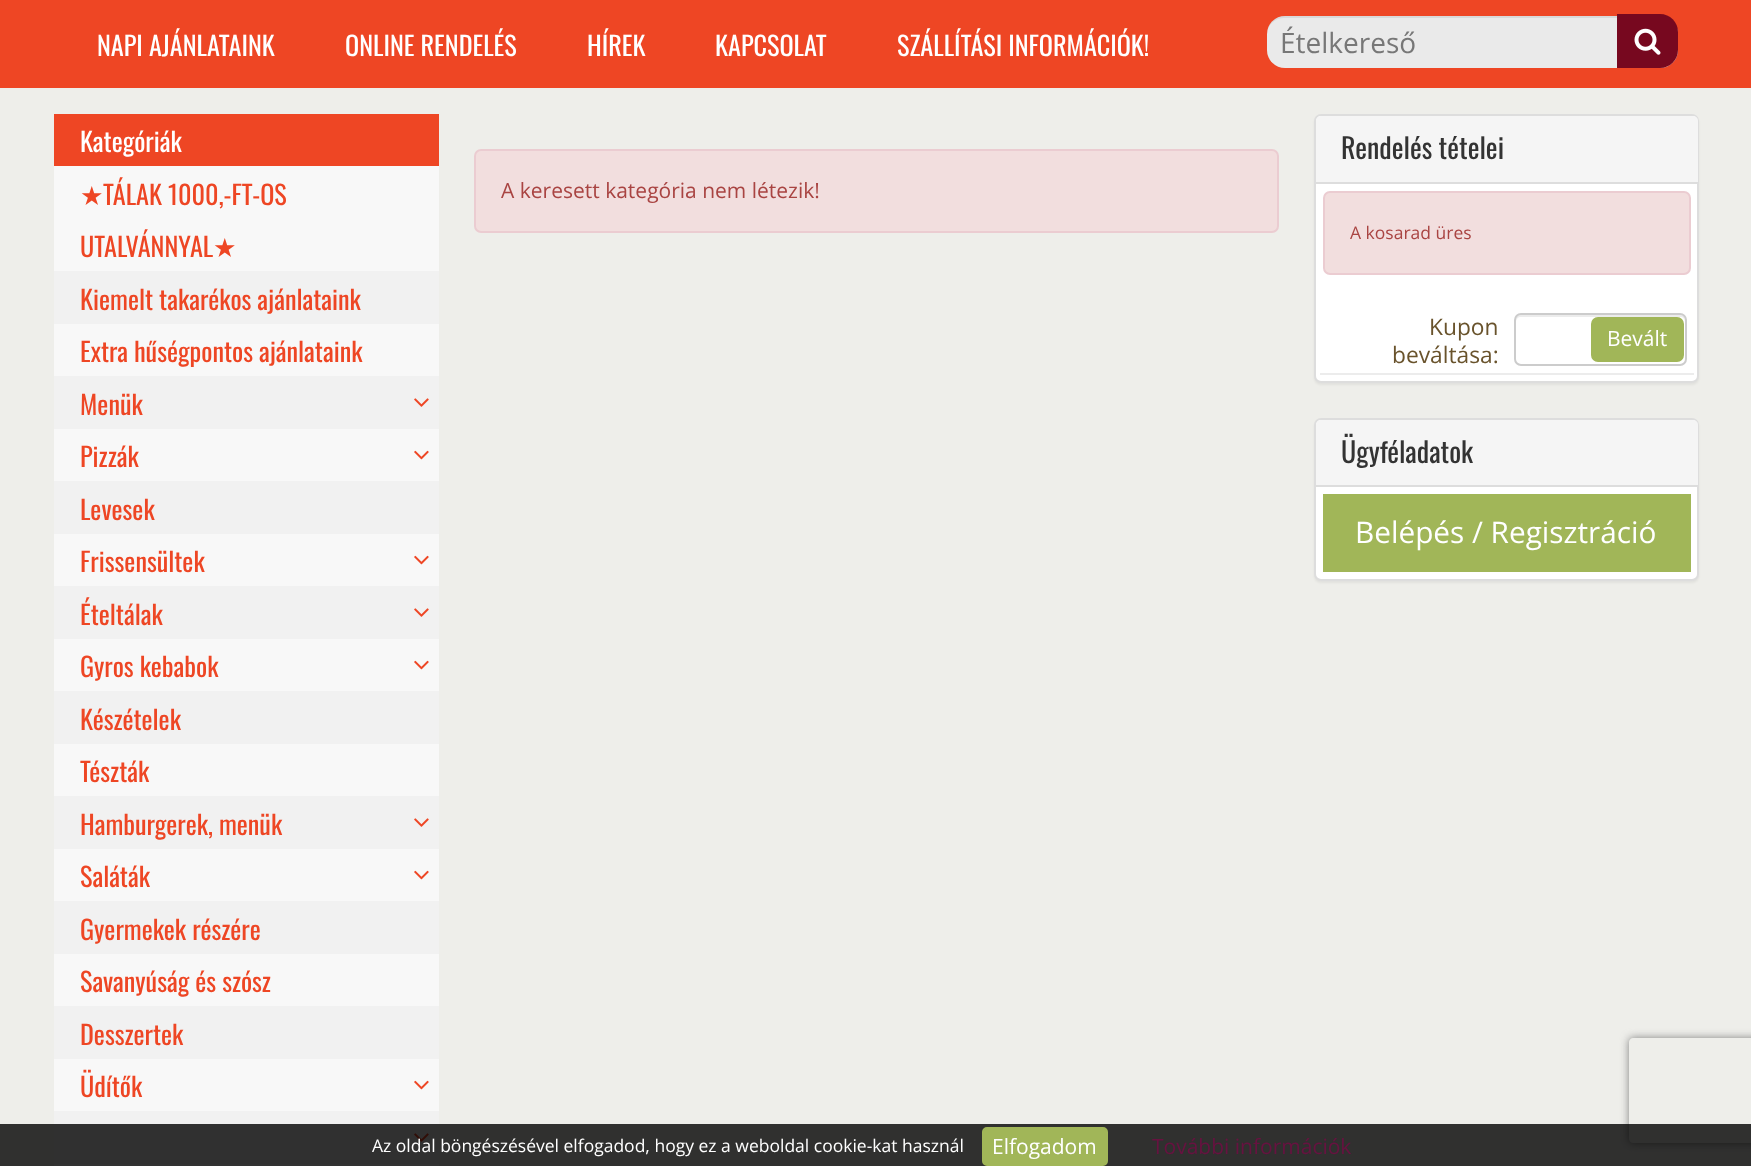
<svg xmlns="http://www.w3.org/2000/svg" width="1751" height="1166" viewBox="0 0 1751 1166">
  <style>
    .t1 { font: 26.25px Oswald; fill: #fff; }
    .t2 { font: 28px Open Sans; fill: #777; }
    .t3 { font: 26.25px DejaVu Sans; fill: #ee4624; }
    .t4 { font: 26.25px Oswald; fill: #ee4624; }
    .t5 { font: 21px Open Sans; fill: #a94442; }
    .t6 { font: 28px Oswald; fill: #333; }
    .t7 { font: 17.5px Open Sans; fill: #a94442; }
    .t8 { font: 22.75px Open Sans; fill: #69532c; }
    .t9 { font: 21px Open Sans; fill: #fff; }
    .t10 { font: 29.75px Open Sans; fill: #fff; }
    .t11 { font: 17.5px Open Sans; fill: #fff; }
    .t12 { font: 21px Open Sans; fill: #671240; }
  </style>
  <defs>
    <clipPath id="clip1"><path d="M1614 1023H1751V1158H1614ZM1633 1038H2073C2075 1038 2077 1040 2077 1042V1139C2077 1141 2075 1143 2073 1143H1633C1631 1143 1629 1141 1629 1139V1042C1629 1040 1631 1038 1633 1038Z" clip-rule="evenodd"/></clipPath>
  </defs>
  <rect width="100%" height="100%" fill="#eeeeea"/>
  <rect x="0" y="0" width="1751" height="88" fill="#ee4624"/>
  <text x="97" y="56" class="t1">NAPI AJÁNLATAINK</text>
  <text x="345" y="56" class="t1">ONLINE RENDELÉS</text>
  <text x="587" y="56" class="t1">HÍREK</text>
  <text x="715" y="56" class="t1">KAPCSOLAT</text>
  <text x="897" y="56" class="t1">SZÁLLÍTÁSI INFORMÁCIÓK!</text>
  <rect x="1267" y="16" width="411" height="52" rx="18" fill="#eaeaea"/>
  <path d="M1284 18H1661C1670 18 1678 25 1678 35V34C1678 24 1670 16 1660 16H1285C1275 16 1267 24 1267 34V35C1267 25 1275 18 1284 18Z" fill="#00000012"/>
  <text x="1280" y="53" class="t2">Ételkereső</text>
  <path d="M1617 14H1660C1670 14 1678 22 1678 32V50C1678 60 1670 68 1660 68H1617Z" fill="#77081f"/>
  <image x="1634" y="28" width="27" height="27" href="images/1.png"/>
  <rect x="54" y="114" width="385" height="52" fill="#ee4624"/>
  <text x="80" y="152" class="t1">Kategóriák</text>
  <rect x="54" y="166" width="385" height="105" fill="#f8f8f8"/>
  <text x="80" y="205" class="t3">★</text>
  <text x="103" y="205" class="t4">TÁLAK 1000,-FT-OS</text>
  <text x="80" y="257" class="t4">UTALVÁNNYAL</text>
  <text x="213" y="257" class="t3">★</text>
  <rect x="54" y="271" width="385" height="53" fill="#f1f1f1"/>
  <text x="80" y="310" class="t4">Kiemelt takarékos ajánlataink</text>
  <rect x="54" y="324" width="385" height="52" fill="#f8f8f8"/>
  <text x="80" y="362" class="t4">Extra hűségpontos ajánlataink</text>
  <rect x="54" y="376" width="385" height="53" fill="#f1f1f1"/>
  <text x="80" y="415" class="t4">Menük</text>
  <image x="414" y="398" width="15" height="9" href="images/2.png"/>
  <rect x="54" y="429" width="385" height="52" fill="#f8f8f8"/>
  <text x="80" y="467" class="t4">Pizzák</text>
  <image x="414" y="450" width="15" height="10" href="images/3.png"/>
  <rect x="54" y="481" width="385" height="53" fill="#f1f1f1"/>
  <text x="80" y="520" class="t4">Levesek</text>
  <rect x="54" y="534" width="385" height="52" fill="#f8f8f8"/>
  <text x="80" y="572" class="t4">Frissensültek</text>
  <image x="414" y="555" width="15" height="10" href="images/3.png"/>
  <rect x="54" y="586" width="385" height="53" fill="#f1f1f1"/>
  <text x="80" y="625" class="t4">Ételtálak</text>
  <image x="414" y="608" width="15" height="9" href="images/2.png"/>
  <rect x="54" y="639" width="385" height="52" fill="#f8f8f8"/>
  <text x="80" y="677" class="t4">Gyros kebabok</text>
  <image x="414" y="660" width="15" height="10" href="images/3.png"/>
  <rect x="54" y="691" width="385" height="53" fill="#f1f1f1"/>
  <text x="80" y="730" class="t4">Készételek</text>
  <rect x="54" y="744" width="385" height="52" fill="#f8f8f8"/>
  <text x="80" y="782" class="t4">Tészták</text>
  <rect x="54" y="796" width="385" height="53" fill="#f1f1f1"/>
  <text x="80" y="835" class="t4">Hamburgerek, menük</text>
  <image x="414" y="818" width="15" height="9" href="images/2.png"/>
  <rect x="54" y="849" width="385" height="52" fill="#f8f8f8"/>
  <text x="80" y="887" class="t4">Saláták</text>
  <image x="414" y="870" width="15" height="10" href="images/3.png"/>
  <rect x="54" y="901" width="385" height="53" fill="#f1f1f1"/>
  <text x="80" y="940" class="t4">Gyermekek részére</text>
  <rect x="54" y="954" width="385" height="52" fill="#f8f8f8"/>
  <text x="80" y="992" class="t4">Savanyúság és szósz</text>
  <rect x="54" y="1006" width="385" height="53" fill="#f1f1f1"/>
  <text x="80" y="1045" class="t4">Desszertek</text>
  <rect x="54" y="1059" width="385" height="52" fill="#f8f8f8"/>
  <text x="80" y="1097" class="t4">Üdítők</text>
  <image x="414" y="1080" width="15" height="10" href="images/3.png"/>
  <rect x="54" y="1111" width="385" height="53" fill="#f1f1f1"/>
  <image x="414" y="1133" width="15" height="9" href="images/2.png"/>
  <rect x="54" y="1164" width="385" height="2" fill="#f8f8f8"/>
  <rect x="475" y="150" width="803" height="82" rx="6" fill="#f2dede" stroke="#ebccd1" stroke-width="2"/>
  <text x="501" y="198" class="t5">A keresett kategória nem létezik!</text>
  <rect x="1314" y="116" width="385" height="269" rx="7" fill="#0000000d" filter="blur(1px)"/>
  <rect x="1315" y="115" width="383" height="267" rx="6" fill="#fff" stroke="#ddd" stroke-width="2"/>
  <path d="M1321 116H1693C1696 116 1698 118 1698 121V184H1316V121C1316 118 1318 116 1321 116Z" fill="#f5f5f5"/>
  <rect x="1316" y="182" width="382" height="2" fill="#ddd"/>
  <text x="1341" y="159" class="t6">Rendelés tételei</text>
  <rect x="1324" y="192" width="366" height="82" rx="6" fill="#f2dede" stroke="#ebccd1" stroke-width="2"/>
  <text x="1350" y="239" class="t7">A kosarad üres</text>
  <rect x="1320" y="373" width="374" height="2" fill="#ececec"/>
  <text x="1429" y="335" class="t8">Kupon</text>
  <text x="1392" y="363" class="t8">beváltása:</text>
  <path d="M1521 317H1680C1683 317 1685 319 1685 322V320C1685 317 1683 315 1680 315H1521C1518 315 1516 317 1516 320V322C1516 319 1518 317 1521 317Z" fill="#ececec"/>
  <rect x="1515" y="314" width="171" height="51" rx="6" fill="none" stroke="#ccc" stroke-width="2"/>
  <rect x="1592" y="318" width="91" height="43" rx="6" fill="#a1b658" stroke="#a1b658" stroke-width="2"/>
  <text x="1607" y="346" class="t9">Bevált</text>
  <rect x="1314" y="420" width="385" height="163" rx="7" fill="#0000000d" filter="blur(1px)"/>
  <rect x="1315" y="419" width="383" height="161" rx="6" fill="#fff" stroke="#ddd" stroke-width="2"/>
  <path d="M1321 420H1693C1696 420 1698 422 1698 425V487H1316V425C1316 422 1318 420 1321 420Z" fill="#f5f5f5"/>
  <rect x="1316" y="485" width="382" height="2" fill="#ddd"/>
  <text x="1341" y="463" class="t6">Ügyféladatok</text>
  <rect x="1323" y="494" width="368" height="78" fill="#a1b658"/>
  <text x="1355" y="543" class="t10">Belépés / Regisztráció</text>
  <g clip-path="url(#clip1)">
    <rect x="1629" y="1038" width="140" height="105" rx="4" fill="#808080" filter="blur(4.5px)"/>
  </g>
  <rect x="0" y="1124" width="1751" height="42" fill="#000000cc"/>
  <text x="372" y="1152" class="t11">Az oldal böngészésével elfogadod, hogy ez a weboldal cookie-kat használ</text>
  <rect x="983" y="1128" width="124" height="37" rx="4" fill="#a1b658" stroke="#a1b658" stroke-width="2"/>
  <text x="992" y="1154" class="t9">Elfogadom</text>
  <text x="1152" y="1154" class="t12">További információk</text>
</svg>
